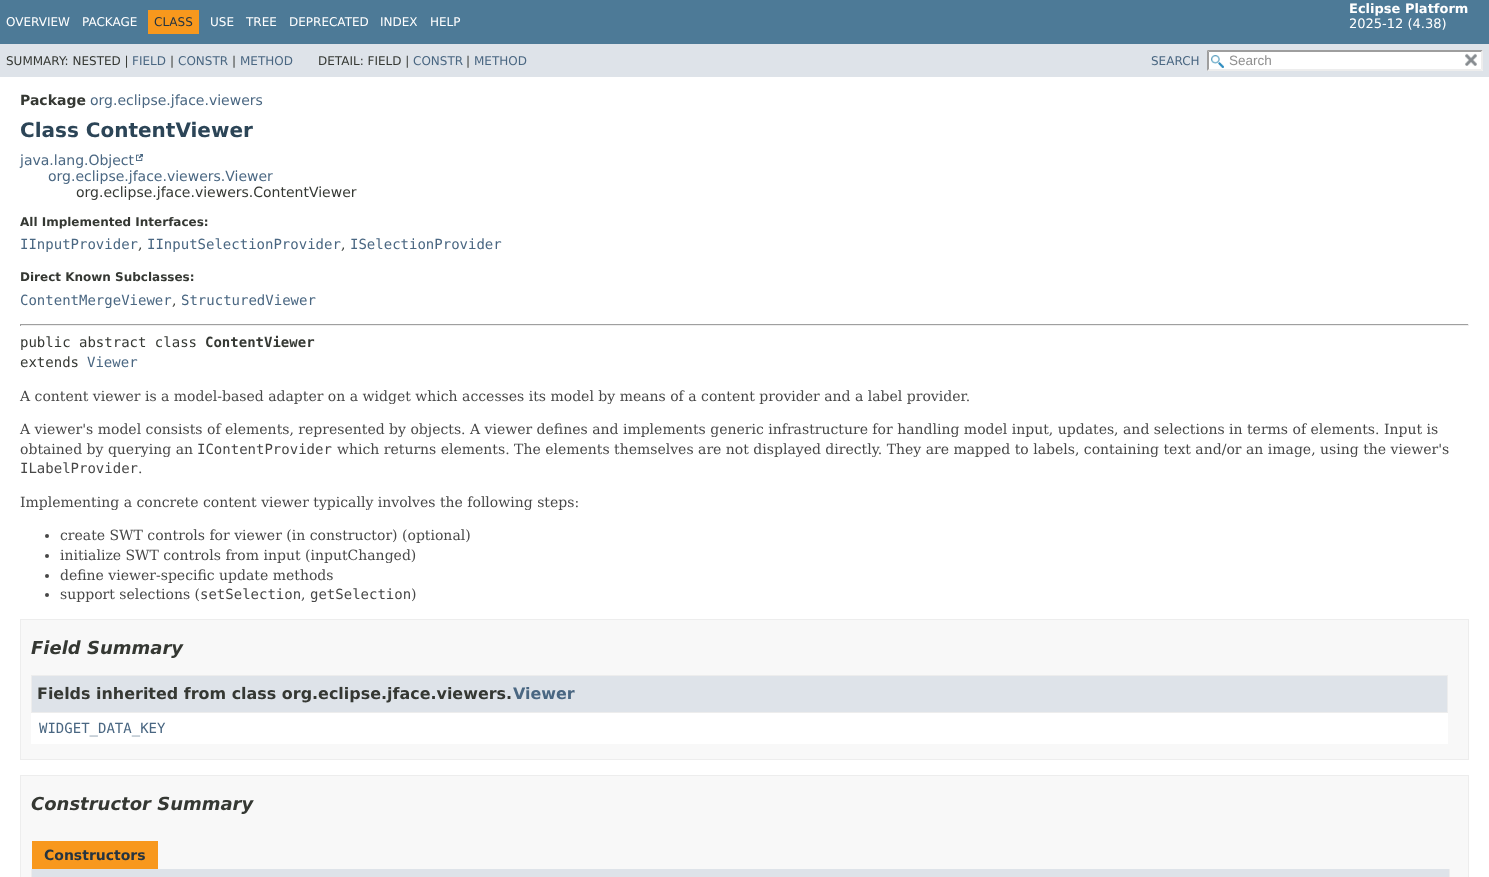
<svg xmlns="http://www.w3.org/2000/svg" width="1489" height="877" viewBox="0 0 1489 877">
  <style>
    .t1 { font: 12px DejaVu Sans; fill: #fff; }
    .t2 { font: 12px DejaVu Sans; fill: #253441; }
    .t3 { font: bold 13px DejaVu Sans; fill: #fff; }
    .t4 { font: 13px DejaVu Sans; fill: #fff; }
    .t5 { font: 12px DejaVu Sans; fill: #353833; }
    .t6 { font: 12px DejaVu Sans; fill: #4a6782; }
    .t7 { font: 13.5px Liberation Sans; fill: #909090; }
    .t8 { font: bold 14px DejaVu Sans; fill: #353833; }
    .t9 { font: 14px DejaVu Sans; fill: #4a6782; }
    .t10 { font: bold 20px DejaVu Sans; fill: #2c4557; }
    .t11 { font: 14px DejaVu Sans; fill: #353833; }
    .t12 { font: bold 12px DejaVu Sans; fill: #353833; }
    .t13 { font: 14px DejaVu Sans Mono; fill: #4a6782; }
    .t14 { font: 14px DejaVu Serif; fill: #353833; }
    .t15 { font: 14px DejaVu Sans Mono; fill: #353833; }
    .t16 { font: bold 14px DejaVu Sans Mono; fill: #353833; }
    .t17 { font: 14px DejaVu Serif; fill: #474747; }
    .t18 { font: 14px DejaVu Sans Mono; fill: #474747; }
    .t19 { font: italic bold 18px DejaVu Sans; fill: #353833; }
    .t20 { font: bold 15.95px DejaVu Sans; fill: #353833; }
    .t21 { font: bold 15.95px DejaVu Sans; fill: #4a6782; }
    .t22 { font: bold 14px DejaVu Sans; fill: #253441; }
  </style>
  <rect width="100%" height="100%" fill="#fff"/>
  <rect x="0" y="0" width="1489" height="44" fill="#4d7a97"/>
  <text x="6" y="26" class="t1">OVERVIEW</text>
  <text x="82" y="26" class="t1">PACKAGE</text>
  <rect x="148" y="10" width="51" height="24" fill="#f8981d"/>
  <text x="154" y="26" class="t2">CLASS</text>
  <text x="210" y="26" class="t1">USE</text>
  <text x="246" y="26" class="t1">TREE</text>
  <text x="289" y="26" class="t1">DEPRECATED</text>
  <text x="380" y="26" class="t1">INDEX</text>
  <text x="430" y="26" class="t1">HELP</text>
  <text x="1349" y="13" class="t3">Eclipse Platform</text>
  <text x="1349" y="28" class="t4">2025-12 (4.38)</text>
  <rect x="0" y="44" width="1489" height="33" fill="#dee3e9"/>
  <text x="6" y="65" class="t5">SUMMARY: NESTED |</text>
  <text x="132" y="65" class="t6">FIELD</text>
  <text x="170" y="65" class="t5">|</text>
  <text x="178" y="65" class="t6">CONSTR</text>
  <text x="232" y="65" class="t5">|</text>
  <text x="240" y="65" class="t6">METHOD</text>
  <text x="318" y="65" class="t5">DETAIL: FIELD |</text>
  <text x="413" y="65" class="t6">CONSTR</text>
  <text x="466" y="65" class="t5">|</text>
  <text x="474" y="65" class="t6">METHOD</text>
  <text x="1151" y="65" class="t6">SEARCH</text>
  <rect x="1207" y="50" width="276" height="21" fill="#fff"/>
  <image x="1211" y="55" width="13" height="13" href="images/1.png"/>
  <path d="M1207 50H1483L1481 52H1209Z" fill="#9e9e9e"/>
  <path d="M1483 50V71L1481 69V52Z" fill="#ededed"/>
  <path d="M1483 71H1207L1209 69H1481Z" fill="#ededed"/>
  <path d="M1207 71V50L1209 52V69Z" fill="#9e9e9e"/>
  <text x="1229" y="65" class="t7">Search</text>
  <image x="1465" y="53" width="12" height="13" href="images/2.png"/>
  <text x="20" y="105" class="t8">Package</text>
  <text x="90" y="105" class="t9">org.eclipse.jface.viewers</text>
  <text x="20" y="137" class="t10">Class ContentViewer</text>
  <text x="20" y="165" class="t9">java.lang.Object</text>
  <image x="136" y="154" width="7" height="7" href="images/3.png"/>
  <text x="48" y="181" class="t9">org.eclipse.jface.viewers.Viewer</text>
  <text x="76" y="197" class="t11">org.eclipse.jface.viewers.ContentViewer</text>
  <text x="20" y="226" class="t12">All Implemented Interfaces:</text>
  <text x="20" y="249" class="t13">IInputProvider</text>
  <text x="138" y="249" class="t14">,</text>
  <text x="147" y="249" class="t13">IInputSelectionProvider</text>
  <text x="341" y="249" class="t14">,</text>
  <text x="350" y="249" class="t13">ISelectionProvider</text>
  <text x="20" y="281" class="t12">Direct Known Subclasses:</text>
  <text x="20" y="305" class="t13">ContentMergeViewer</text>
  <text x="172" y="305" class="t14">,</text>
  <text x="181" y="305" class="t13">StructuredViewer</text>
  <rect x="20" y="324" width="1449" height="1" fill="#9f9f9f"/>
  <rect x="1468" y="324" width="1" height="2" fill="#eee"/>
  <rect x="20" y="325" width="1449" height="1" fill="#eee"/>
  <rect x="20" y="324" width="1" height="2" fill="#9f9f9f"/>
  <text x="20" y="347" class="t15">public abstract class</text>
  <text x="205" y="347" class="t16">ContentViewer</text>
  <text x="20" y="367" class="t15">extends</text>
  <text x="87" y="367" class="t13">Viewer</text>
  <text x="20" y="401" class="t17">A content viewer is a model-based adapter on a widget which accesses its model by means of a content provider and a label provider.</text>
  <text x="20" y="434" class="t17">A viewer's model consists of elements, represented by objects. A viewer defines and implements generic infrastructure for handling model input, updates, and selections in terms of elements. Input is</text>
  <text x="20" y="454" class="t17">obtained by querying an</text>
  <text x="197" y="454" class="t18">IContentProvider</text>
  <text x="337" y="454" class="t17">which returns elements. The elements themselves are not displayed directly. They are mapped to labels, containing text and/or an image, using the viewer's</text>
  <text x="20" y="473" class="t18">ILabelProvider</text>
  <text x="138" y="473" class="t17">.</text>
  <text x="20" y="507" class="t17">Implementing a concrete content viewer typically involves the following steps:</text>
  <circle cx="47" cy="536" r="2" fill="#474747"/>
  <text x="60" y="540" class="t17">create SWT controls for viewer (in constructor) (optional)</text>
  <circle cx="47" cy="556" r="2" fill="#474747"/>
  <text x="60" y="560" class="t17">initialize SWT controls from input (inputChanged)</text>
  <circle cx="47" cy="576" r="2" fill="#474747"/>
  <text x="60" y="580" class="t17">define viewer-specific update methods</text>
  <circle cx="47" cy="595" r="2" fill="#474747"/>
  <text x="60" y="599" class="t17">support selections (</text>
  <text x="200" y="599" class="t18">setSelection</text>
  <text x="310" y="599" class="t18">getSelection</text>
  <text x="411" y="599" class="t17">)</text>
  <text x="301" y="599" class="t17">,</text>
  <rect x="20.5" y="619.5" width="1448" height="140" fill="#f8f8f8" stroke="#ededed"/>
  <text x="31" y="654" class="t19">Field Summary</text>
  <rect x="31" y="713" width="1417" height="31" fill="#fff"/>
  <rect x="31.5" y="675.5" width="1416" height="37" fill="#dee3e9" stroke="#ededed"/>
  <text x="37" y="699" class="t20">Fields inherited from class org.eclipse.jface.viewers.</text>
  <text x="513" y="699" class="t21">Viewer</text>
  <text x="39" y="733" class="t13">WIDGET_DATA_KEY</text>
  <rect x="20.5" y="775.5" width="1448" height="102" fill="#f8f8f8" stroke="#ededed"/>
  <text x="31" y="810" class="t19">Constructor Summary</text>
  <rect x="32" y="841" width="126" height="28" fill="#f8981d"/>
  <text x="44" y="860" class="t22">Constructors</text>
  <rect x="1449" y="869" width="1" height="8" fill="#ededed"/>
  <rect x="31" y="869" width="1" height="8" fill="#ededed"/>
  <rect x="32" y="869" width="1417" height="8" fill="#dee3e9"/>
</svg>
